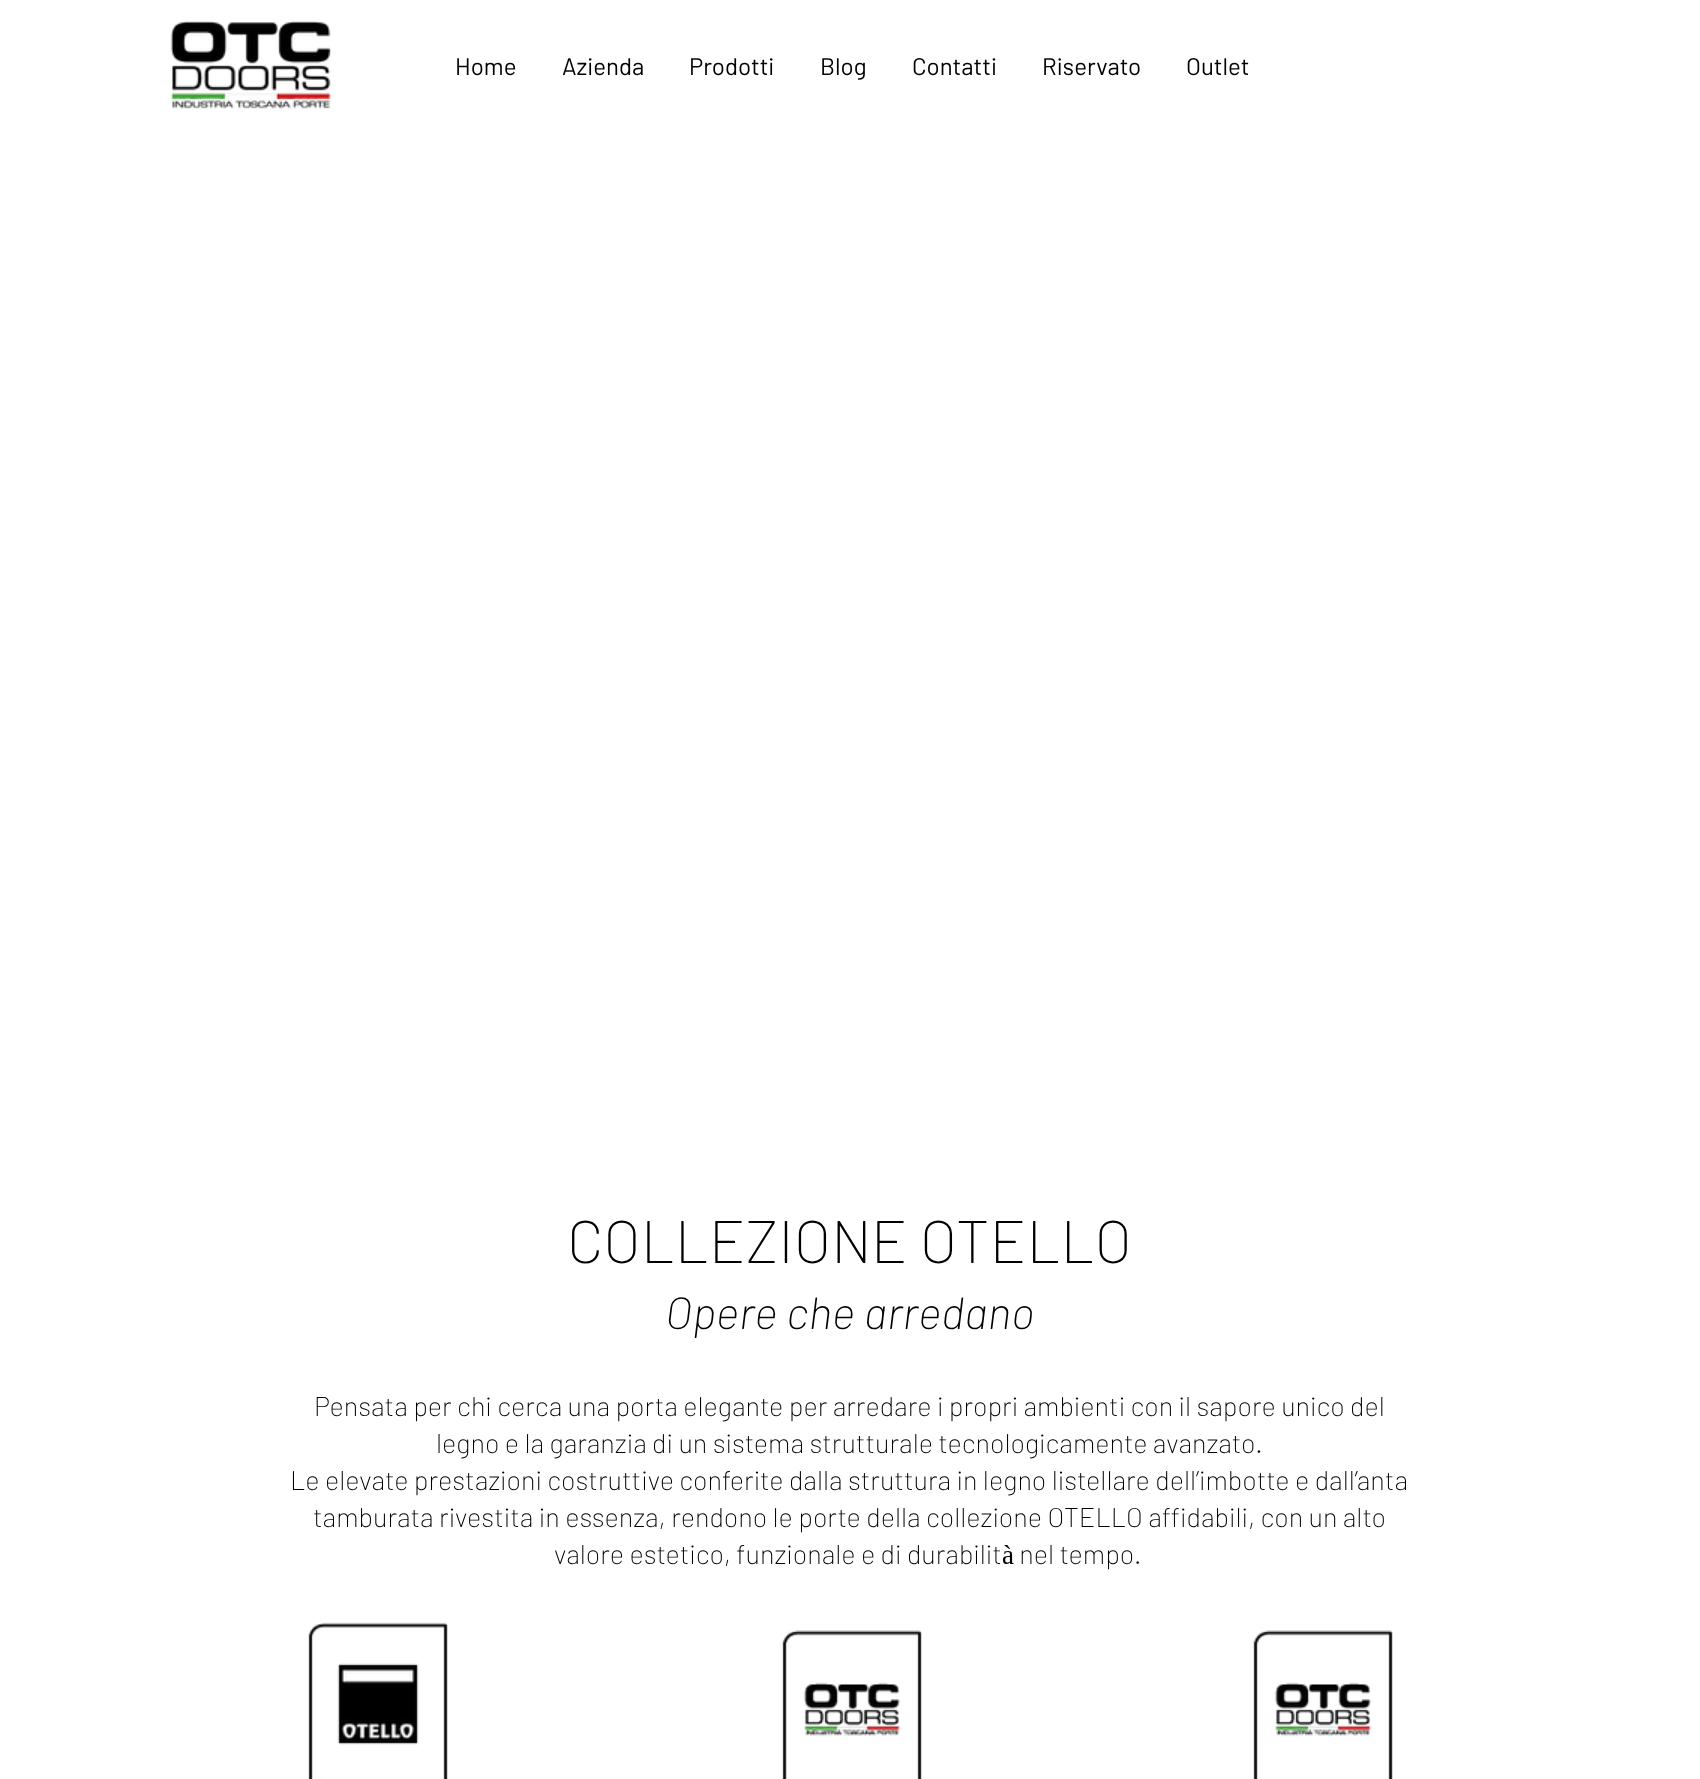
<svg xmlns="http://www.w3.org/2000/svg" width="1700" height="1779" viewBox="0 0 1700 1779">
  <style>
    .t1 { font: 24px Barlow; fill: #000; }
    .t2 { font: 200 60px Barlow; fill: #000; }
    .t3 { font: italic 200 45px Barlow; fill: #000; }
    .t4 { font: 200 27px Barlow; fill: #000; }
  </style>
  <rect width="100%" height="100%" fill="#fff"/>
  <image x="170" y="21" width="161" height="88" href="images/1.png"/>
  <text x="455" y="75" class="t1">Home</text>
  <text x="562" y="75" class="t1">Azienda</text>
  <text x="689" y="75" class="t1">Prodotti</text>
  <text x="820" y="75" class="t1">Blog</text>
  <text x="912" y="75" class="t1">Contatti</text>
  <text x="1042" y="75" class="t1">Riservato</text>
  <text x="1186" y="75" class="t1">Outlet</text>
  <text x="567" y="1263" class="t2">COLLEZIONE OTELLO</text>
  <text x="665" y="1329" class="t3">Opere che arredano</text>
  <text x="314" y="1416" class="t4">Pensata per chi cerca una porta elegante per arredare i propri ambienti con il sapore unico del</text>
  <text x="436" y="1453" class="t4">legno e la garanzia di un sistema strutturale tecnologicamente avanzato.</text>
  <text x="290" y="1490" class="t4">Le elevate prestazioni costruttive conferite dalla struttura in legno listellare dell’imbotte e dall’anta</text>
  <text x="313" y="1527" class="t4">tamburata rivestita in essenza, rendono le porte della collezione OTELLO affidabili, con un alto</text>
  <text x="554" y="1564" class="t4">valore estetico, funzionale e di durabilità nel tempo.</text>
  <image x="308" y="1622" width="140" height="157" href="images/2.png"/>
  <image x="782" y="1630" width="140" height="149" href="images/3.png"/>
  <image x="1253" y="1630" width="140" height="149" href="images/4.png"/>
</svg>
